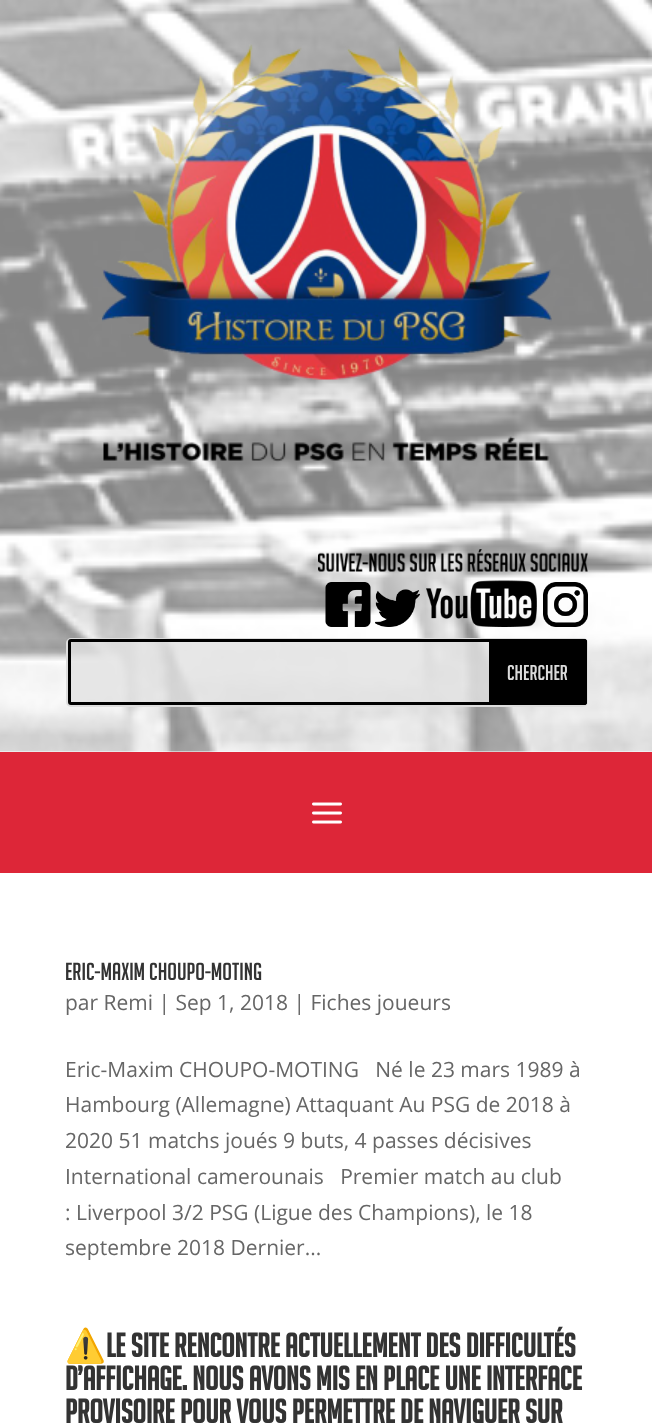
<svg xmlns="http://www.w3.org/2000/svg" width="652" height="1424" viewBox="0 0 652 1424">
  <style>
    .t1 { font: 21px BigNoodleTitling; fill: #dbdbdb; }
    .t2 { font: 24px BigNoodleTitling; fill: #333; }
    .t3 { font: 21px Open Sans; fill: #666; }
    .t4 { font: bold 33px Noto Color Emoji; fill: #333; }
    .t5 { font: bold 33px BigNoodleTitling; fill: #333; }
  </style>
  <rect width="100%" height="100%" fill="#fff"/>
  <image x="0" y="0" width="652" height="752" href="images/1.png"/>
  <image x="102" y="44" width="450" height="336" href="images/2.png"/>
  <image x="103" y="436" width="447" height="26" href="images/3.png"/>
  <image x="318" y="549" width="270" height="23" href="images/4.png"/>
  <image x="325" y="582" width="46" height="45" href="images/5.png"/>
  <image x="375" y="589" width="45" height="38" href="images/6.png"/>
  <image x="426" y="580" width="111" height="47" href="images/7.png"/>
  <image x="543" y="582" width="45" height="45" href="images/8.png"/>
  <rect x="67" y="639" width="520" height="67" rx="4" fill="none" stroke="#ddd" stroke-width="2"/>
  <rect x="68" y="639" width="519" height="66" rx="3" fill="#e2e2e2d1"/>
  <path d="M71 639C69 639 68 640 68 642V702C68 704 69 705 71 705H584C586 705 587 704 587 702V642C587 640 586 639 584 639ZM71 642V702H584V642Z" fill="#000" fill-rule="evenodd"/>
  <path d="M489 639H584C585.5 639 587 640.5 587 642V702C587 703.5 585.5 705 584 705H489Z" fill="#000"/>
  <path d="M489 639V705H584C586 705 587 704 587 702V642C587 640 586 639 584 639ZM492 642V702H584V642Z" fill="#000" fill-rule="evenodd"/>
  <text x="507" y="680" class="t1">Chercher</text>
  <rect x="0" y="752" width="652" height="121" fill="#dd2638"/>
  <image x="312" y="802" width="30" height="22" href="images/9.png"/>
  <text x="65" y="980" class="t2">Eric-Maxim CHOUPO-MOTING</text>
  <text x="65" y="1010" class="t3">par Remi | Sep 1, 2018 | Fiches joueurs</text>
  <text x="65" y="1077" class="t3" xml:space="preserve">Eric-Maxim CHOUPO-MOTING   Né le 23 mars 1989 à</text>
  <text x="65" y="1112" class="t3">Hambourg (Allemagne) Attaquant Au PSG de 2018 à</text>
  <text x="65" y="1148" class="t3">2020 51 matchs joués 9 buts, 4 passes décisives</text>
  <text x="65" y="1184" class="t3" xml:space="preserve">International camerounais   Premier match au club</text>
  <text x="65" y="1220" class="t3">: Liverpool 3/2 PSG (Ligue des Champions), le 18</text>
  <text x="65" y="1255" class="t3">septembre 2018 Dernier...</text>
  <text x="65" y="1357" class="t4">⚠️</text>
  <text x="106" y="1357" class="t5">Le site rencontre actuellement des difficultés</text>
  <text x="65" y="1390" class="t5">d’affichage. Nous avons mis en place une interface</text>
  <text x="65" y="1423" class="t5">provisoire pour vous permettre de naviguer sur</text>
</svg>
